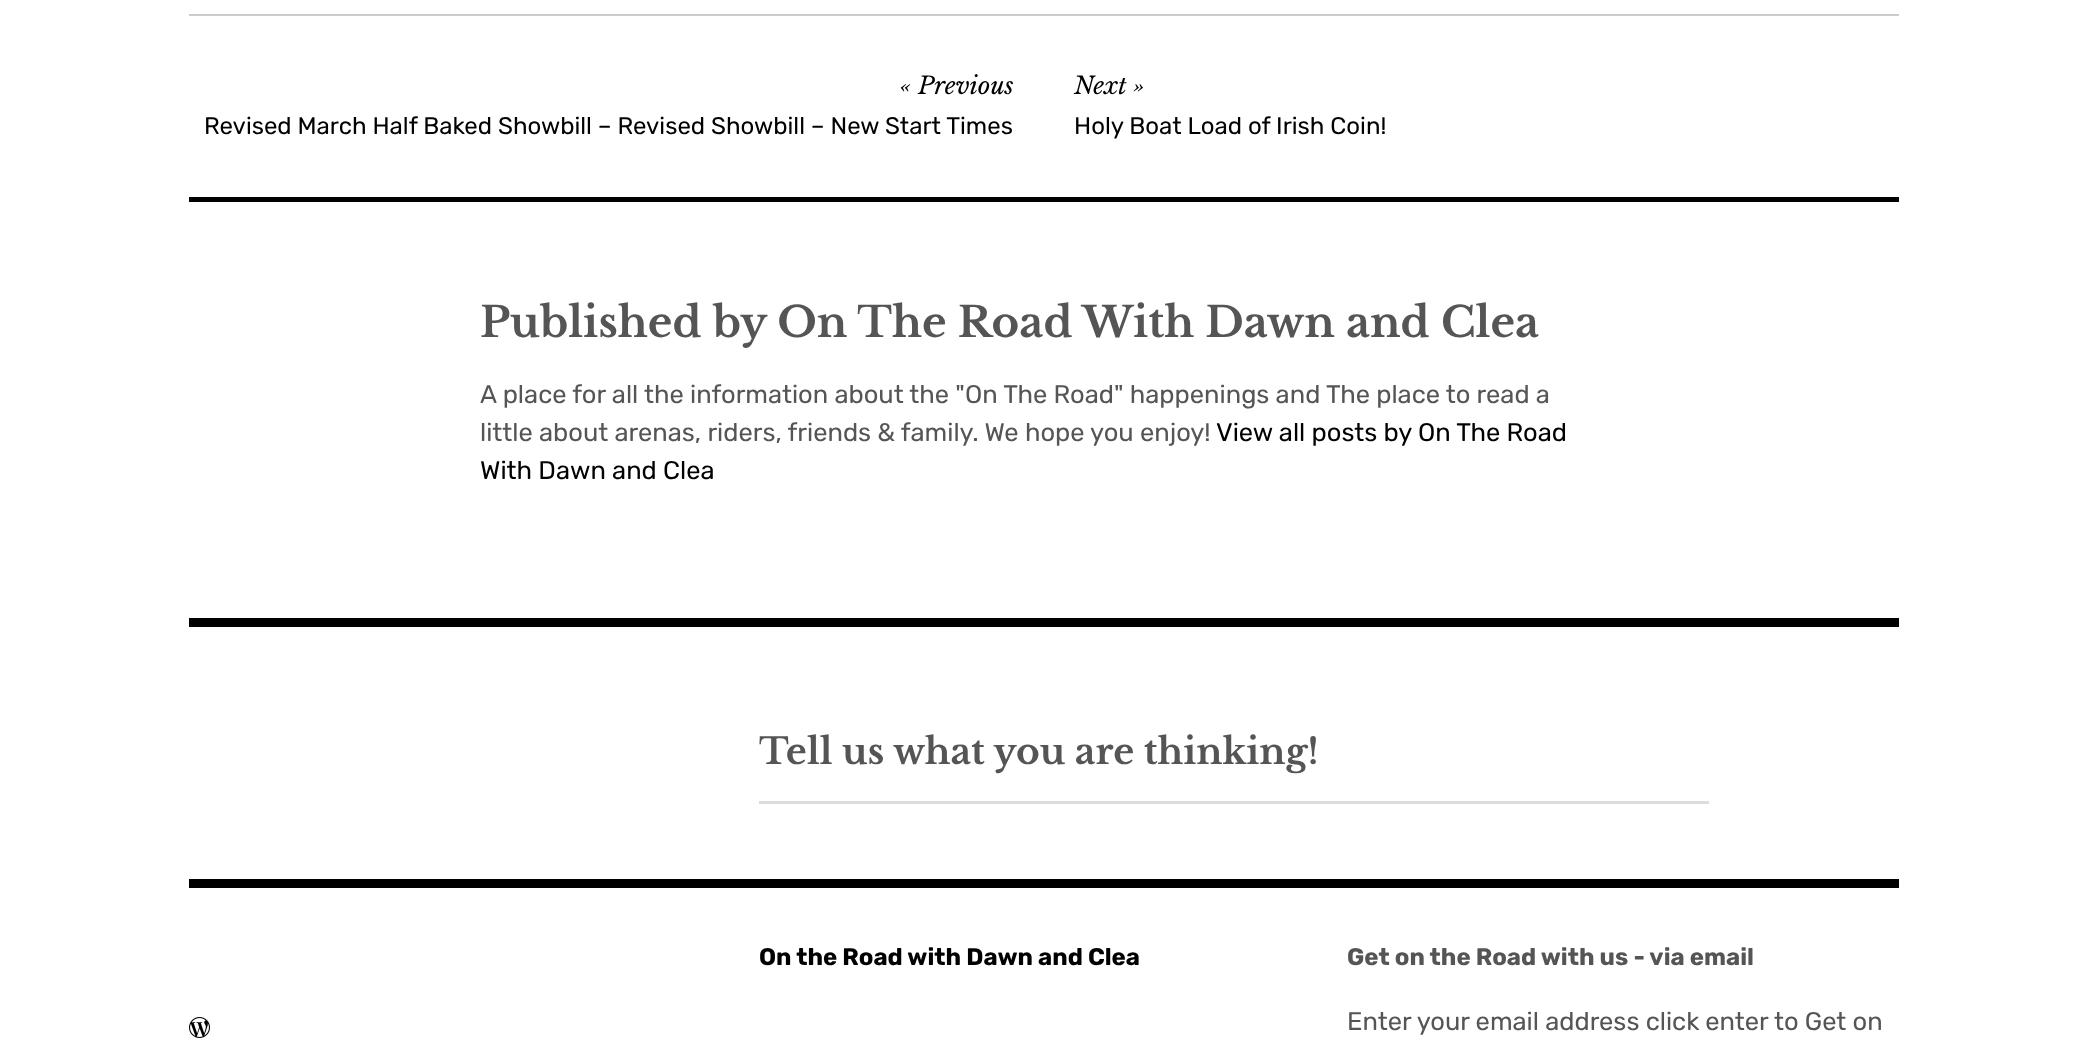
<svg xmlns="http://www.w3.org/2000/svg" width="2087" height="1060" viewBox="0 0 2087 1060">
  <style>
    .t1 { font: italic 24px Libre Baskerville; fill: #000; }
    .t2 { font: 24px Rubik; fill: #000; }
    .t3 { font: bold 42px Libre Baskerville; fill: #555; }
    .t4 { font: 25.5px Rubik; fill: #555; }
    .t5 { font: 25.5px Rubik; fill: #000; }
    .t6 { font: bold 36px Libre Baskerville; fill: #555; }
    .t7 { font: bold 24px Rubik; fill: #000; }
    .t8 { font: bold 24px Rubik; fill: #555; }
  </style>
  <rect width="100%" height="100%" fill="#fff"/>
  <rect x="189" y="14" width="1710" height="2" fill="#ccc"/>
  <text x="900" y="94" class="t1">« Previous</text>
  <text x="204" y="134" class="t2">Revised March Half Baked Showbill – Revised Showbill – New Start Times</text>
  <text x="1074" y="94" class="t1">Next »</text>
  <text x="1074" y="134" class="t2">Holy Boat Load of Irish Coin!</text>
  <rect x="189" y="197" width="1710" height="5" fill="#000"/>
  <text x="480" y="337" class="t3">Published by On The Road With Dawn and Clea</text>
  <text x="480" y="403" class="t4">A place for all the information about the "On The Road" happenings and The place to read a</text>
  <text x="480" y="441" class="t4">little about arenas, riders, friends &amp; family. We hope you enjoy!</text>
  <text x="1216" y="441" class="t5">View all posts by On The Road</text>
  <text x="480" y="479" class="t5">With Dawn and Clea</text>
  <rect x="189" y="618" width="1710" height="9" fill="#000"/>
  <text x="759" y="764" class="t6">Tell us what you are thinking!</text>
  <rect x="759" y="801" width="950" height="3" fill="#dcdcde"/>
  <rect x="189" y="879" width="1710" height="9" fill="#000"/>
  <image x="189" y="1017" width="21" height="21" href="images/1.png"/>
  <text x="759" y="965" class="t7">On the Road with Dawn and Clea</text>
  <text x="1347" y="965" class="t8">Get on the Road with us - via email</text>
  <text x="1347" y="1030" class="t4">Enter your email address click enter to Get on</text>
</svg>
